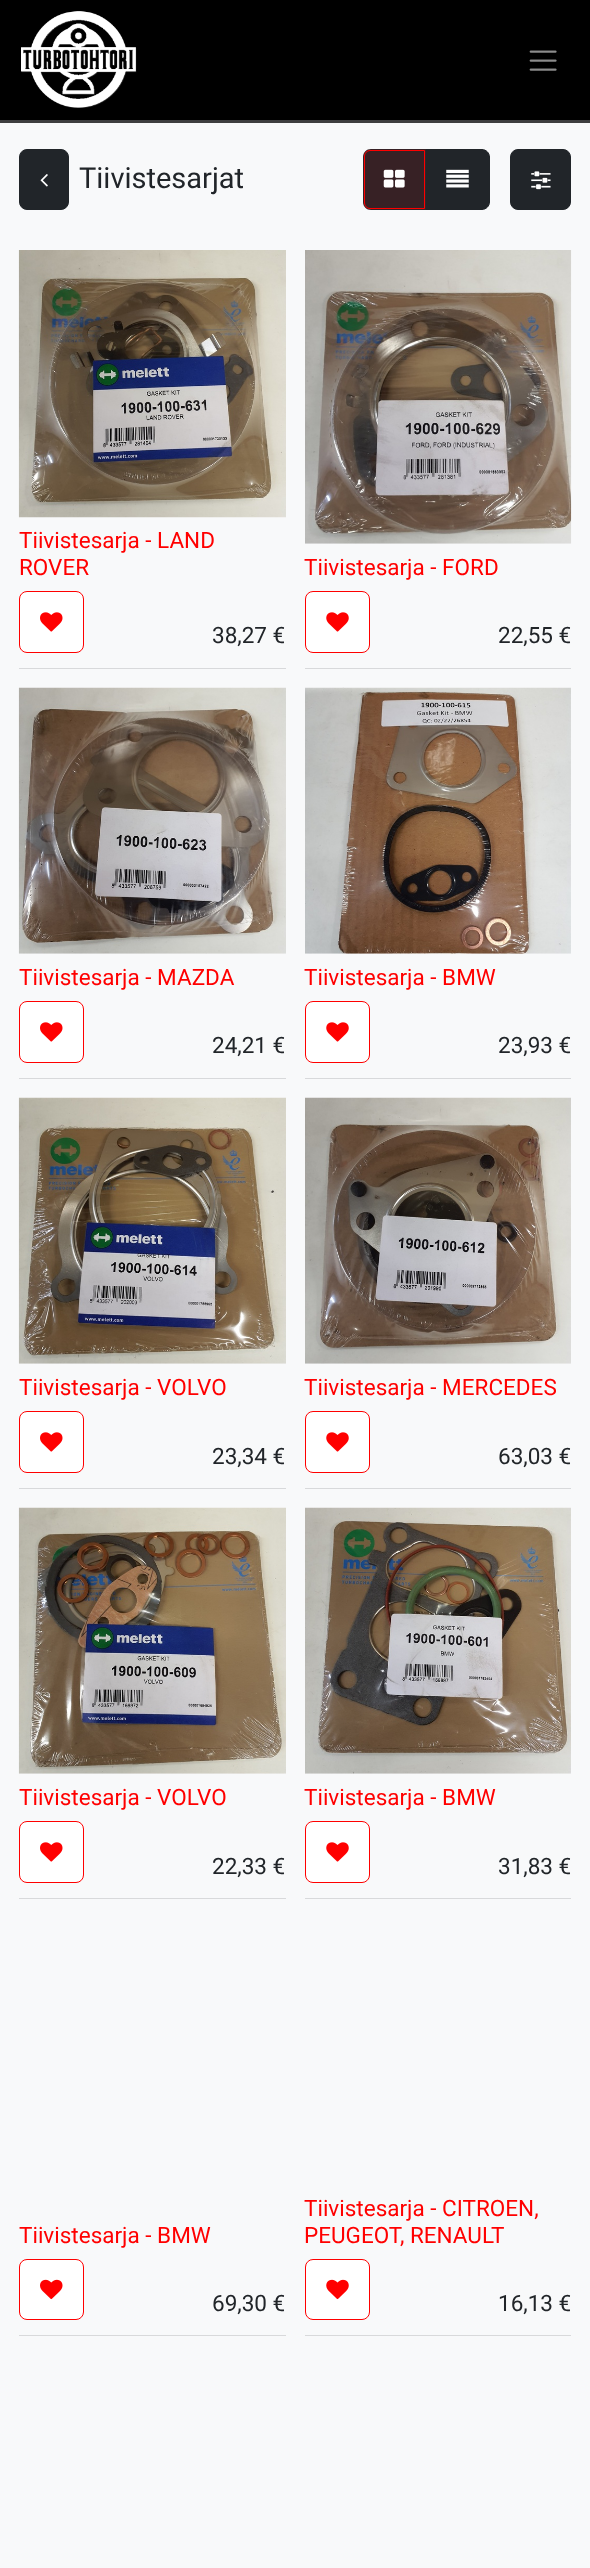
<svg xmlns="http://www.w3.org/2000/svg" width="590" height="2568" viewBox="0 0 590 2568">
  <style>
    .t1 { font: 29px Roboto; fill: #212529; }
    .t2 { font: 22.5px Roboto; fill: #f00; }
    .t3 { font: 22.5px Roboto; fill: #212529; }
  </style>
  <rect width="100%" height="100%" fill="#f8f9fa"/>
  <rect x="0" y="120" width="590" height="3" fill="#3e3e3f"/>
  <rect x="0" y="0" width="590" height="120" fill="#000"/>
  <image x="21" y="11" width="116" height="97" href="images/1.png"/>
  <image x="529" y="50" width="28" height="21" href="images/2.png"/>
  <rect x="19.5" y="149.5" width="49" height="60" rx="7.5" fill="#212529" stroke="#212529"/>
  <image x="40" y="174" width="8" height="13" href="images/3.png"/>
  <text x="79" y="188" class="t1">Tiivistesarjat</text>
  <path d="M425.5 149.5H482C486 149.5 489.5 153 489.5 157V202C489.5 206 486 209.5 482 209.5H425.5Z" fill="#212529" stroke="#212529"/>
  <path d="M371 149H426V210H371C366.5 210 363 206.5 363 202V157C363 152.5 366.5 149 371 149Z" fill="#372125"/>
  <path d="M370 150.5H424.5V208.5H370C367 208.5 364.5 206 364.5 203V156C364.5 153 367 150.5 370 150.5Z" fill="none" stroke="#f00"/>
  <image x="383" y="169" width="22" height="19" href="images/4.png"/>
  <image x="446" y="169" width="23" height="19" href="images/5.png"/>
  <rect x="510.5" y="149.5" width="60" height="60" rx="7.5" fill="#212529" stroke="#212529"/>
  <image x="531" y="171" width="20" height="19" href="images/6.png"/>
  <rect x="19" y="668" width="267" height="1" fill="#d8d9db"/>
  <image x="18" y="250" width="268" height="268" href="images/7.png"/>
  <text x="19" y="548" class="t2">Tiivistesarja - LAND</text>
  <text x="19" y="575" class="t2">ROVER</text>
  <rect x="19.5" y="591.5" width="64" height="61" rx="7.5" fill="#fff" stroke="#f00"/>
  <image x="40" y="612" width="23" height="20" href="images/8.png"/>
  <text x="212" y="643" class="t3">38,27 €</text>
  <rect x="305" y="668" width="266" height="1" fill="#d8d9db"/>
  <image x="305" y="250" width="267" height="294" href="images/9.png"/>
  <text x="304" y="575" class="t2">Tiivistesarja - FORD</text>
  <rect x="305.5" y="591.5" width="64" height="61" rx="7.5" fill="#fff" stroke="#f00"/>
  <image x="326" y="612" width="23" height="20" href="images/10.png"/>
  <text x="498" y="643" class="t3">22,55 €</text>
  <rect x="19" y="1078" width="267" height="1" fill="#d8d9db"/>
  <image x="18" y="687" width="268" height="267" href="images/11.png"/>
  <text x="19" y="985" class="t2">Tiivistesarja - MAZDA</text>
  <rect x="19.5" y="1001.5" width="64" height="61" rx="7.5" fill="#fff" stroke="#f00"/>
  <image x="40" y="1022" width="23" height="20" href="images/8.png"/>
  <text x="212" y="1053" class="t3">24,21 €</text>
  <rect x="305" y="1078" width="266" height="1" fill="#d8d9db"/>
  <image x="305" y="687" width="266" height="267" href="images/12.png"/>
  <text x="304" y="985" class="t2">Tiivistesarja - BMW</text>
  <rect x="305.5" y="1001.5" width="64" height="61" rx="7.5" fill="#fff" stroke="#f00"/>
  <image x="326" y="1022" width="23" height="20" href="images/10.png"/>
  <text x="498" y="1053" class="t3">23,93 €</text>
  <rect x="19" y="1488" width="267" height="1" fill="#d8d9db"/>
  <image x="18" y="1097" width="268" height="267" href="images/13.png"/>
  <text x="19" y="1395" class="t2">Tiivistesarja - VOLVO</text>
  <rect x="19.5" y="1411.5" width="64" height="61" rx="7.5" fill="#fff" stroke="#f00"/>
  <image x="40" y="1432" width="23" height="20" href="images/8.png"/>
  <text x="212" y="1464" class="t3">23,34 €</text>
  <rect x="305" y="1488" width="266" height="1" fill="#d8d9db"/>
  <image x="305" y="1097" width="266" height="267" href="images/14.png"/>
  <text x="304" y="1395" class="t2">Tiivistesarja - MERCEDES</text>
  <rect x="305.5" y="1411.5" width="64" height="61" rx="7.5" fill="#fff" stroke="#f00"/>
  <image x="326" y="1432" width="23" height="20" href="images/10.png"/>
  <text x="498" y="1464" class="t3">63,03 €</text>
  <rect x="19" y="1898" width="267" height="1" fill="#d8d9db"/>
  <image x="18" y="1507" width="268" height="267" href="images/15.png"/>
  <text x="19" y="1805" class="t2">Tiivistesarja - VOLVO</text>
  <rect x="19.5" y="1821.5" width="64" height="61" rx="7.5" fill="#fff" stroke="#f00"/>
  <image x="40" y="1842" width="23" height="20" href="images/8.png"/>
  <text x="212" y="1874" class="t3">22,33 €</text>
  <rect x="305" y="1898" width="266" height="1" fill="#d8d9db"/>
  <image x="305" y="1507" width="266" height="267" href="images/16.png"/>
  <text x="304" y="1805" class="t2">Tiivistesarja - BMW</text>
  <rect x="305.5" y="1821.5" width="64" height="61" rx="7.5" fill="#fff" stroke="#f00"/>
  <image x="326" y="1842" width="23" height="20" href="images/10.png"/>
  <text x="498" y="1874" class="t3">31,83 €</text>
  <rect x="19" y="2335" width="267" height="1" fill="#d8d9db"/>
  <text x="19" y="2243" class="t2">Tiivistesarja - BMW</text>
  <rect x="19.5" y="2259.5" width="64" height="60" rx="7.5" fill="#fff" stroke="#f00"/>
  <image x="40" y="2279" width="23" height="21" href="images/17.png"/>
  <text x="212" y="2311" class="t3">69,30 €</text>
  <rect x="305" y="2335" width="266" height="1" fill="#d8d9db"/>
  <text x="304" y="2216" class="t2">Tiivistesarja - CITROEN,</text>
  <text x="304" y="2243" class="t2">PEUGEOT, RENAULT</text>
  <rect x="305.5" y="2259.5" width="64" height="60" rx="7.5" fill="#fff" stroke="#f00"/>
  <image x="326" y="2279" width="23" height="21" href="images/18.png"/>
  <text x="498" y="2311" class="t3">16,13 €</text>
</svg>
